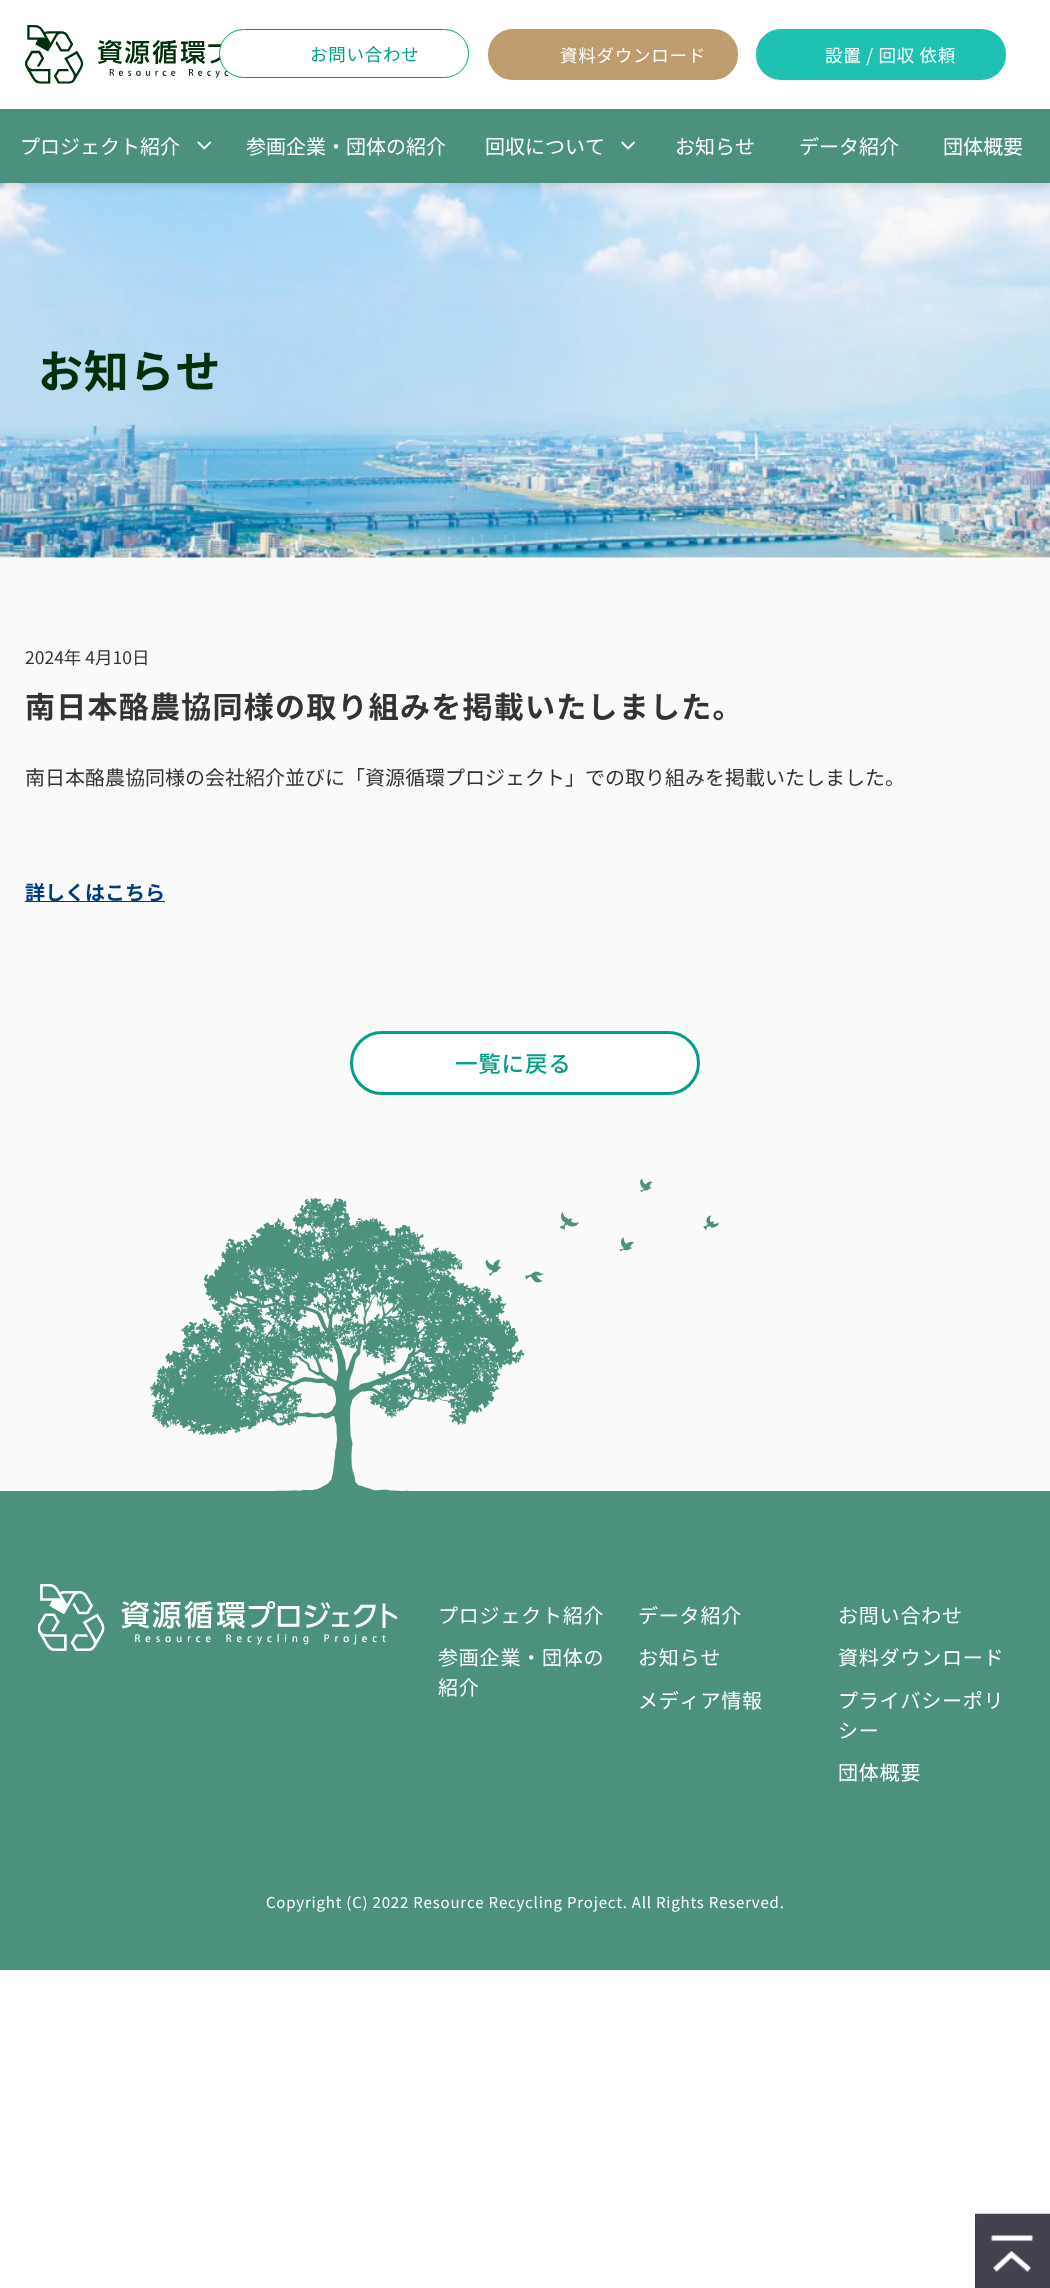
<svg xmlns="http://www.w3.org/2000/svg" width="1050" height="2288" viewBox="0 0 1050 2288">
  <style>*{font-kerning:none!important;font-variant-ligatures:none!important}</style>
  <style>
    .t1 { font: 17.5px Noto Sans JP; letter-spacing: 0.75px; fill: #00a087; }
    .t2 { font: 17.5px Noto Sans JP; letter-spacing: 0.75px; fill: #fff; }
    .t3 { font: 20px Noto Sans JP; fill: #fff; }
    .t4 { font: bold 45px Noto Sans JP; letter-spacing: 0.8px; fill: #00310c; }
    .t5 { font: 17.5px Noto Sans JP; fill: #333; }
    .t6 { font: bold 30px Noto Sans JP; letter-spacing: 1.25px; fill: #333; }
    .t7 { font: 20px Noto Sans JP; fill: #333; }
    .t8 { font: bold 20px Noto Sans JP; fill: #003b82; }
    .t9 { font: 500 22.5px Noto Sans JP; letter-spacing: 0.8px; fill: #00a087; }
    .t10 { font: 20px Noto Sans JP; letter-spacing: 0.8px; fill: #fff; }
    .t11 { font: 15px Noto Sans JP; letter-spacing: 0.8px; fill: #fff; }
  </style>
  <rect width="100%" height="100%" fill="#fff"/>
  <image x="0" y="183" width="1050" height="375" href="images/4.png"/>
  <rect x="0" y="4" width="1050" height="182" fill="#0000001a" filter="blur(4px)"/>
  <rect x="0" y="0" width="1050" height="109" fill="#fff"/>
  <image x="25" y="25" width="209" height="59" href="images/1.png"/>
  <rect x="219.5" y="29.5" width="249" height="48" rx="24" fill="#fff" stroke="#00a087"/>
  <text x="310" y="61" class="t1">お問い合わせ</text>
  <rect x="489.5" y="30.5" width="247" height="48" rx="23.5" fill="#be9c6d" stroke="#be9c6d" stroke-width="3"/>
  <text x="560" y="62" class="t2">資料ダウンロード</text>
  <rect x="757.5" y="30.5" width="247" height="48" rx="23.5" fill="#1fc2b2" stroke="#1fc2b2" stroke-width="3"/>
  <text x="825" y="62" class="t2">設置 / 回収 依頼</text>
  <rect x="0" y="109" width="1050" height="74" fill="#4c917d"/>
  <text x="20" y="154" class="t3">プロジェクト紹介</text>
  <image x="197" y="141" width="15" height="9" href="images/2.png"/>
  <text x="246" y="154" class="t3">参画企業・団体の紹介</text>
  <text x="485" y="154" class="t3">回収について</text>
  <image x="621" y="141" width="14" height="9" href="images/3.png"/>
  <text x="675" y="154" class="t3">お知らせ</text>
  <text x="799" y="154" class="t3">データ紹介</text>
  <text x="943" y="154" class="t3">団体概要</text>
  <text x="38" y="388" class="t4">お知らせ</text>
  <rect x="0" y="558" width="1050" height="933" fill="#fafafa"/>
  <text x="25" y="664" class="t5">2024年 4月10日</text>
  <text x="25" y="718" class="t6">南日本酪農協同様の取り組みを掲載いたしました。</text>
  <text x="25" y="785" class="t7">南日本酪農協同様の会社紹介並びに「資源循環プロジェクト」での取り組みを掲載いたしました。</text>
  <rect x="25" y="901" width="140" height="1" fill="#003b82"/>
  <text x="25" y="900" class="t8">詳しくはこちら</text>
  <rect x="351.5" y="1032.5" width="347" height="61" rx="30.5" fill="#fff" stroke="#00a087" stroke-width="3"/>
  <text x="455" y="1072" class="t9">一覧に戻る</text>
  <rect x="0" y="1491" width="1050" height="479" fill="#4c917d"/>
  <image x="149" y="1179" width="570" height="312" href="images/5.png"/>
  <image x="38" y="1584" width="360" height="67" href="images/6.png"/>
  <text x="438" y="1623" class="t10">プロジェクト紹介</text>
  <text x="438" y="1665" class="t10">参画企業・団体の</text>
  <text x="438" y="1695" class="t10">紹介</text>
  <text x="638" y="1623" class="t10">データ紹介</text>
  <text x="638" y="1665" class="t10">お知らせ</text>
  <text x="638" y="1708" class="t10">メディア情報</text>
  <text x="838" y="1623" class="t10">お問い合わせ</text>
  <text x="838" y="1665" class="t10">資料ダウンロード</text>
  <text x="838" y="1708" class="t10">プライバシーポリ</text>
  <text x="838" y="1738" class="t10">シー</text>
  <text x="838" y="1780" class="t10">団体概要</text>
  <image x="975" y="2213" width="75" height="75" href="images/7.png"/>
  <text x="266" y="1908" class="t11">Copyright (C) 2022 Resource Recycling Project. All Rights Reserved.</text>
</svg>
